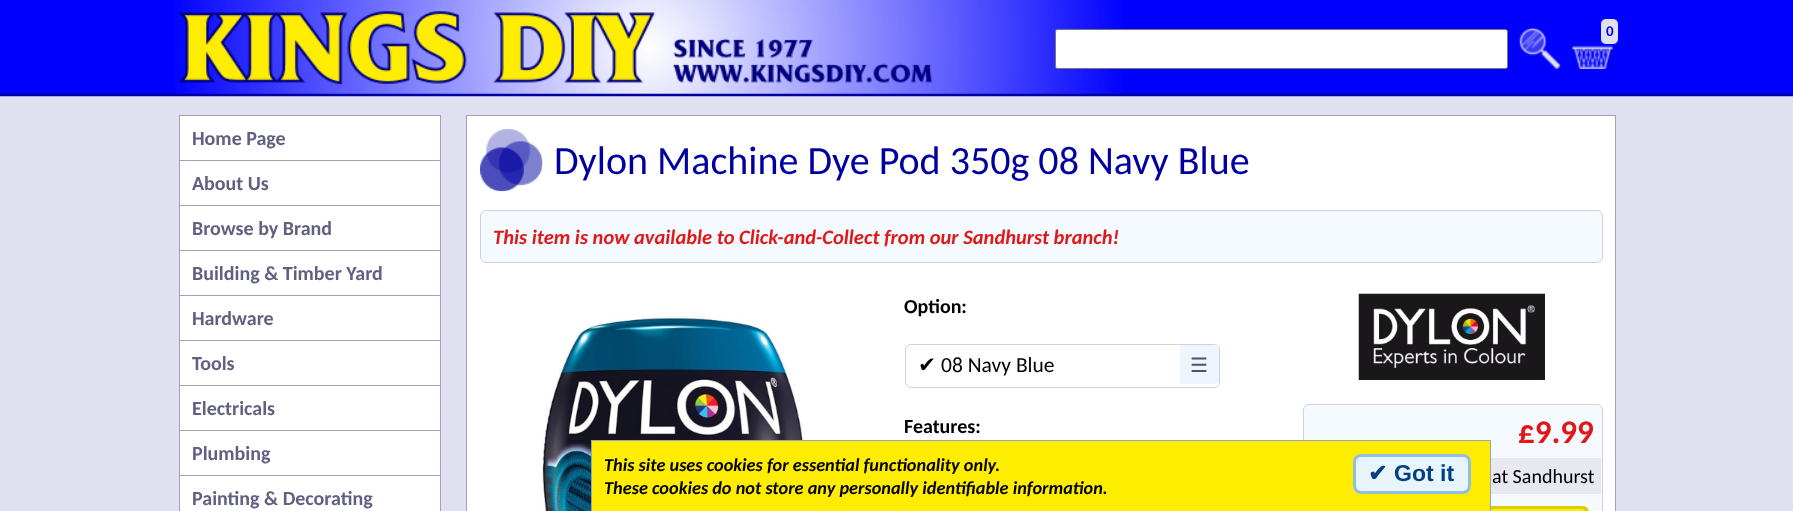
<svg xmlns="http://www.w3.org/2000/svg" width="1793" height="511" viewBox="0 0 1793 511">
  <style>
    .t1 { font: bold 15px Carlito; fill: #00f; }
    .t2 { font: bold 20px Carlito; fill: #606080; }
    .t3 { font: 40px Carlito; fill: #0000a0; }
    .t4 { font: italic bold 20.5px Carlito; fill: #e01818; }
    .t5 { font: bold 20px Carlito; fill: #000; }
    .t6 { font: 21.5px DejaVu Sans; fill: #000; }
    .t7 { font: 21.5px Carlito; fill: #000; }
    .t8 { font: 20px DejaVu Sans; fill: #505068; }
    .t9 { font: bold 33px Carlito; fill: #e01818; }
    .t10 { font: 20px Carlito; fill: #000; }
    .t11 { font: italic bold 18.3px Carlito; fill: #000; }
    .t12 { font: bold 23px DejaVu Sans; fill: #004080; }
    .t13 { font: bold 23px Liberation Sans; fill: #004080; }
  </style>
  <rect width="100%" height="100%" fill="#e0e0f0"/>
  <image x="0" y="0" width="1793" height="97" href="images/1.png"/>
  <image x="174" y="0" width="949" height="95" href="images/2.png"/>
  <image x="178" y="11" width="755" height="74" href="images/3.png"/>
  <rect x="1055.5" y="29.5" width="452" height="39" rx="2" fill="#fff" stroke="#767676"/>
  <image x="1519" y="28" width="42" height="41" href="images/4.png"/>
  <rect x="1600.5" y="18.5" width="18" height="26" rx="5.5" fill="#e0e0f0" stroke="#00f"/>
  <text x="1606" y="36" class="t1">0</text>
  <image x="1571" y="45" width="42" height="24" href="images/5.png"/>
  <rect x="179" y="115" width="262" height="396" fill="#a0a0c0"/>
  <rect x="180" y="116" width="260" height="44" fill="#fff"/>
  <text x="192" y="145" class="t2">Home Page</text>
  <rect x="180" y="161" width="260" height="44" fill="#fff"/>
  <text x="192" y="190" class="t2">About Us</text>
  <rect x="180" y="206" width="260" height="44" fill="#fff"/>
  <text x="192" y="235" class="t2">Browse by Brand</text>
  <rect x="180" y="251" width="260" height="44" fill="#fff"/>
  <text x="192" y="280" class="t2">Building &amp; Timber Yard</text>
  <rect x="180" y="296" width="260" height="44" fill="#fff"/>
  <text x="192" y="325" class="t2">Hardware</text>
  <rect x="180" y="341" width="260" height="44" fill="#fff"/>
  <text x="192" y="370" class="t2">Tools</text>
  <rect x="180" y="386" width="260" height="44" fill="#fff"/>
  <text x="192" y="415" class="t2">Electricals</text>
  <rect x="180" y="431" width="260" height="44" fill="#fff"/>
  <text x="192" y="460" class="t2">Plumbing</text>
  <rect x="180" y="476" width="260" height="35" fill="#fff"/>
  <text x="192" y="505" class="t2">Painting &amp; Decorating</text>
  <rect x="466.5" y="115.5" width="1149" height="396" fill="#fff" stroke="#a0a0c0"/>
  <image x="480" y="129" width="63" height="63" href="images/6.png"/>
  <text x="554" y="174" class="t3">Dylon Machine Dye Pod 350g 08 Navy Blue</text>
  <rect x="480.5" y="210.5" width="1122" height="52" rx="5.5" fill="#f4faff" stroke="#d0d0e0"/>
  <text x="493" y="244" class="t4">This item is now available to Click-and-Collect from our Sandhurst branch!</text>
  <image x="542" y="315" width="265" height="196" href="images/7.png"/>
  <text x="904" y="313" class="t5">Option:</text>
  <rect x="905.5" y="344.5" width="314" height="43" rx="5.5" fill="none" stroke="#d0d0e0"/>
  <text x="918" y="372" class="t6">✔</text>
  <text x="941" y="372" class="t7">08 Navy Blue</text>
  <path d="M1180 345H1214C1217 345 1219 347 1219 350V379C1219 382 1217 384 1214 384H1180Z" fill="#f0f4ff"/>
  <text x="1190" y="372" class="t8">☰</text>
  <text x="904" y="433" class="t5">Features:</text>
  <image x="1358" y="293" width="187" height="87" href="images/8.png"/>
  <rect x="1303.5" y="404.5" width="299" height="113" rx="5.5" fill="#f4faff" stroke="#d0d0e0"/>
  <text x="1518" y="443" class="t9">£9.99</text>
  <rect x="1491" y="458" width="110" height="36" fill="#e8e8f0"/>
  <text x="1492" y="483" class="t10">at Sandhurst</text>
  <rect x="1317.5" y="507.5" width="270" height="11" rx="4.5" fill="#dfcd00" stroke="#dfcd00" stroke-width="3"/>
  <path d="M1405 509H1581C1584 509 1586 511 1586 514V511C1586 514 1584 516 1581 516H1405Z" fill="#ffed00"/>
  <rect x="592" y="441" width="898" height="70" fill="#ffed00"/>
  <rect x="591" y="440" width="900" height="1" fill="#a0a0c0"/>
  <rect x="1490" y="440" width="1" height="71" fill="#a0a0c0"/>
  <rect x="591" y="440" width="1" height="71" fill="#a0a0c0"/>
  <text x="604" y="471" class="t11">This site uses cookies for essential functionality only.</text>
  <text x="604" y="494" class="t11">These cookies do not store any personally identifiable information.</text>
  <rect x="1354.5" y="455.5" width="115" height="37" rx="6.5" fill="#e8f4fc" stroke="#90c0e0" stroke-width="3"/>
  <text x="1368" y="481" class="t12">✔</text>
  <text x="1394" y="481" class="t13">Got it</text>
</svg>
